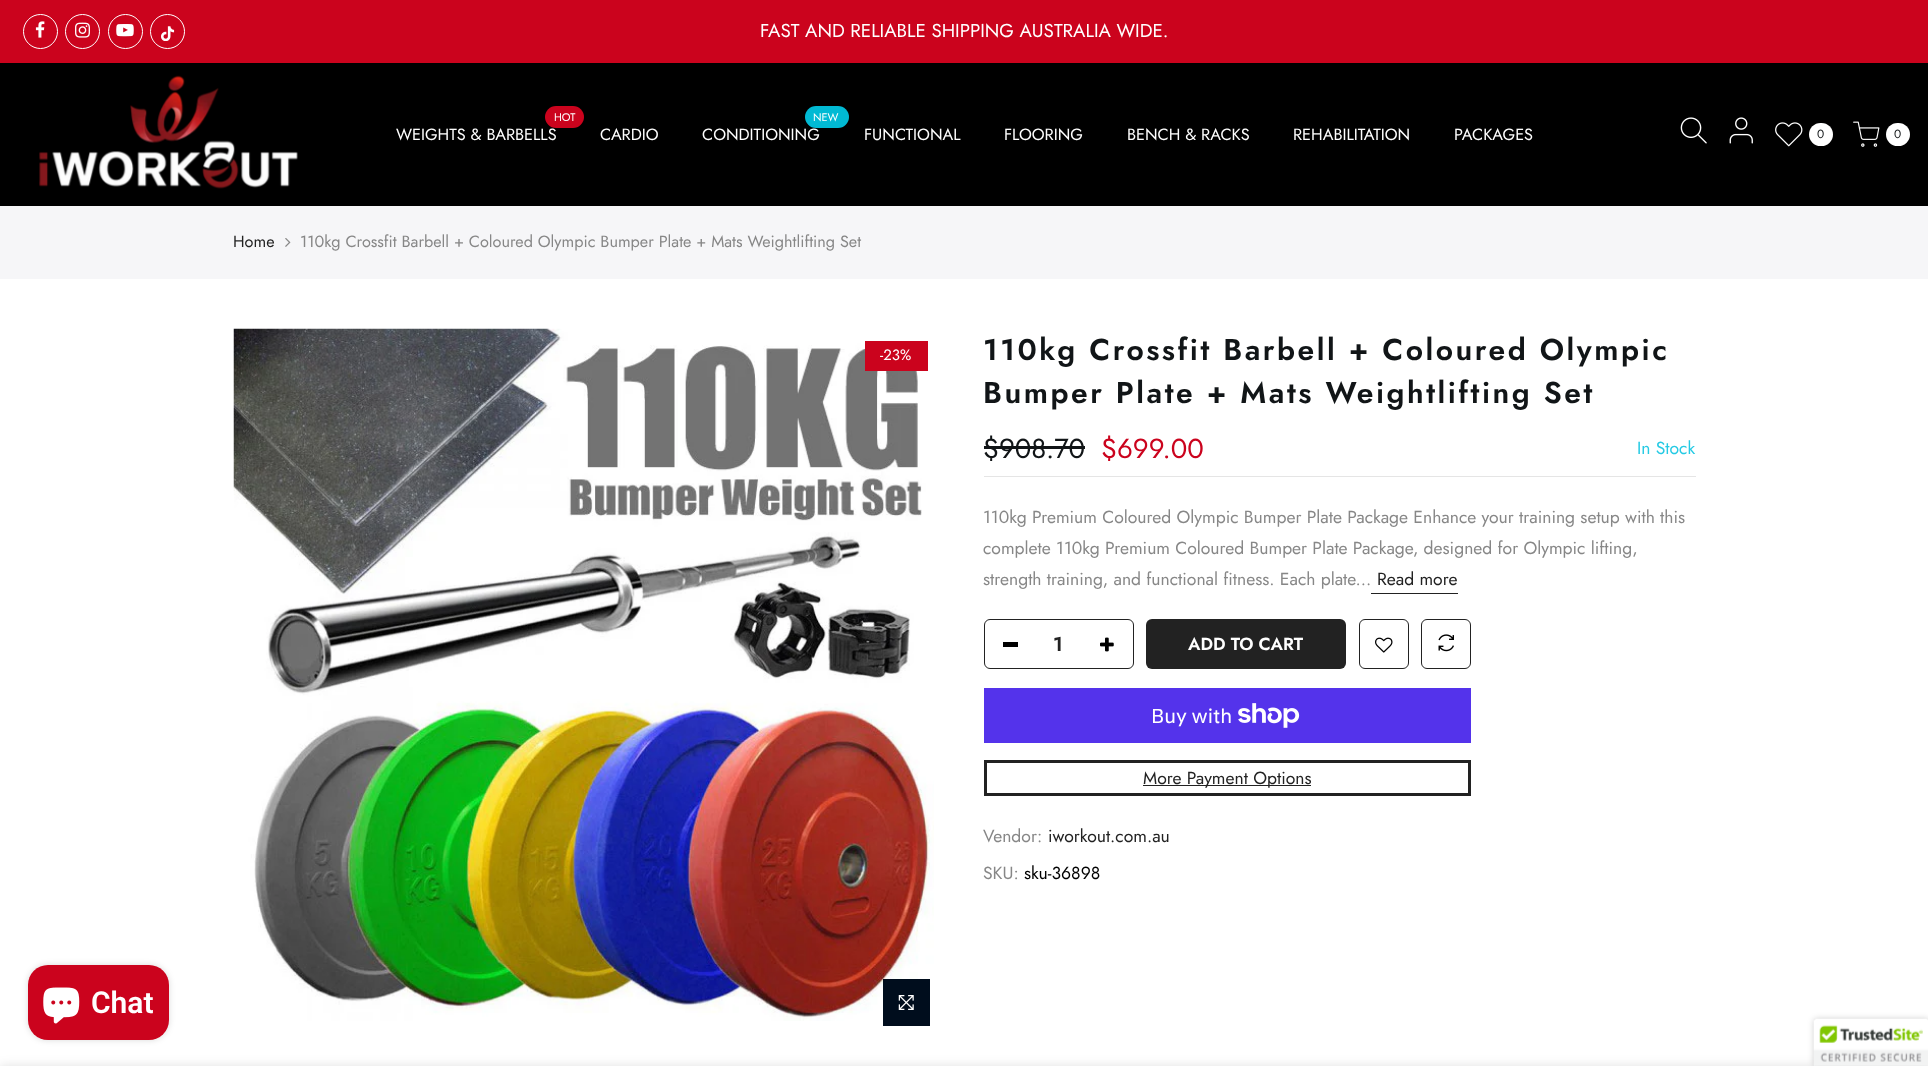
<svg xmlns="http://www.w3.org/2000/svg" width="1928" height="1066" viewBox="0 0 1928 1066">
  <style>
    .t1 { font: 18.75px Jost; fill: #fff; }
    .t2 { font: 11px Jost; fill: #fff; }
    .t3 { font: 16.25px Jost; fill: #fff; }
    .t4 { font: 12px Jost; fill: #111517; }
    .t5 { font: 16.25px Jost; fill: #222; }
    .t6 { font: 16.25px Jost; fill: #878787; }
    .t7 { font: 15px Jost; fill: #fff; }
    .t8 { font: 600 30px Jost; letter-spacing: 2.5px; fill: #111517; }
    .t9 { font: 27.5px Jost; fill: #111517; }
    .t10 { font: 27.5px Jost; fill: #cb031d; }
    .t11 { font: 17.5px Jost; fill: #25cae4; }
    .t12 { font: 17.5px Jost; fill: #878787; }
    .t13 { font: 17.5px Jost; fill: #222; }
    .t14 { font: 600 20px Jost; fill: #222; }
    .t15 { font: 600 17.5px Jost; fill: #fff; }
    .t16 { font: 20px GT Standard; fill: #fff; }
    .t17 { font: 17.5px Jost; fill: #000; }
    .t18 { font: 600 30px Roboto; fill: #fff; }
  </style>
  <rect width="100%" height="100%" fill="#fff"/>
  <rect x="0" y="0" width="1928" height="63" fill="#cb031d"/>
  <circle cx="40.5" cy="31.5" r="17" fill="none" stroke="#fff"/>
  <image x="35" y="21" width="10" height="17" href="images/1.png"/>
  <circle cx="82.5" cy="31.5" r="17" fill="none" stroke="#fff"/>
  <image x="75" y="22" width="15" height="16" href="images/2.png"/>
  <circle cx="125.5" cy="31.5" r="17" fill="none" stroke="#fff"/>
  <image x="116" y="24" width="18" height="13" href="images/3.png"/>
  <circle cx="167.5" cy="31.5" r="17" fill="none" stroke="#fff"/>
  <image x="161" y="26" width="14" height="15" href="images/4.png"/>
  <text x="760" y="37" class="t1">FAST AND RELIABLE SHIPPING AUSTRALIA WIDE.</text>
  <rect x="0" y="63" width="1928" height="143" fill="#000"/>
  <image x="39" y="75" width="259" height="114" href="images/5.png"/>
  <rect x="545" y="106" width="39" height="22" rx="11" fill="#cb031d"/>
  <text x="554" y="121" class="t2">HOT</text>
  <text x="396" y="140" class="t3">WEIGHTS &amp; BARBELLS</text>
  <text x="600" y="140" class="t3">CARDIO</text>
  <rect x="805" y="106" width="44" height="22" rx="11" fill="#01bad4"/>
  <text x="813" y="121" class="t2">NEW</text>
  <text x="702" y="140" class="t3">CONDITIONING</text>
  <text x="864" y="140" class="t3">FUNCTIONAL</text>
  <text x="1004" y="140" class="t3">FLOORING</text>
  <text x="1127" y="140" class="t3">BENCH &amp; RACKS</text>
  <text x="1293" y="140" class="t3">REHABILITATION</text>
  <text x="1454" y="140" class="t3">PACKAGES</text>
  <image x="1680" y="117" width="27" height="27" href="images/6.png"/>
  <image x="1729" y="117" width="24" height="27" href="images/7.png"/>
  <image x="1775" y="122" width="28" height="25" href="images/8.png"/>
  <rect x="1809" y="123" width="24" height="23" rx="11.5" fill="#fff"/>
  <text x="1817" y="138" class="t4">0</text>
  <image x="1853" y="121" width="27" height="26" href="images/9.png"/>
  <rect x="1886" y="123" width="24" height="23" rx="11.5" fill="#fff"/>
  <text x="1894" y="138" class="t4">0</text>
  <rect x="0" y="206" width="1928" height="73" fill="#f6f6f8"/>
  <text x="233" y="247" class="t5">Home</text>
  <image x="285" y="238" width="6" height="9" href="images/10.png"/>
  <text x="300" y="247" class="t6">110kg Crossfit Barbell + Coloured Olympic Bumper Plate + Mats Weightlifting Set</text>
  <image x="233" y="328" width="701" height="693" href="images/11.png"/>
  <rect x="865" y="341" width="63" height="30" fill="#cb031d"/>
  <text x="880" y="360" class="t7">-23%</text>
  <rect x="883" y="979" width="47" height="47" fill="#000d1d"/>
  <image x="898" y="995" width="16" height="15" href="images/12.png"/>
  <text x="983" y="360" class="t8">110kg Crossfit Barbell + Coloured Olympic</text>
  <text x="983" y="403" class="t8">Bumper Plate + Mats Weightlifting Set</text>
  <rect x="984" y="476" width="712" height="1" fill="#e5e5e5"/>
  <text x="983" y="458" class="t9">$908.70</text>
  <rect x="984" y="446" width="101" height="3" fill="#111517"/>
  <text x="1101" y="458" class="t10">$699.00</text>
  <text x="1637" y="454" class="t11">In Stock</text>
  <text x="983" y="523" class="t12">110kg Premium Coloured Olympic Bumper Plate Package Enhance your training setup with this</text>
  <text x="983" y="554" class="t12">complete 110kg Premium Coloured Bumper Plate Package, designed for Olympic lifting,</text>
  <text x="983" y="585" class="t12">strength training, and functional fitness. Each plate...</text>
  <text x="1377" y="585" class="t13">Read more</text>
  <rect x="1371" y="593" width="87" height="1" fill="#222"/>
  <rect x="984.5" y="619.5" width="149" height="49" rx="5.5" fill="none" stroke="#222"/>
  <text x="1053" y="651" class="t14">1</text>
  <rect x="1003" y="642" width="15" height="5" fill="#000"/>
  <image x="1100" y="637" width="14" height="15" href="images/13.png"/>
  <rect x="1146" y="619" width="200" height="50" rx="6" fill="#222"/>
  <text x="1188" y="650" class="t15">ADD TO CART</text>
  <rect x="1359.5" y="619.5" width="49" height="49" rx="5.5" fill="none" stroke="#222"/>
  <image x="1375" y="637" width="18" height="16" href="images/14.png"/>
  <path d="M1376 652.5C1372 648.5 1372 641.5 1376 637.5" fill="none" stroke="#fff" stroke-width="1.2"/>
  <rect x="1421.5" y="619.5" width="49" height="49" rx="5.5" fill="none" stroke="#222"/>
  <image x="1438" y="634" width="16" height="18" href="images/15.png"/>
  <rect x="984" y="688" width="487" height="55" fill="#5433eb"/>
  <text x="1151" y="723" class="t16">Buy with</text>
  <image x="1238" y="703" width="62" height="25" href="images/16.png"/>
  <rect x="985.5" y="761.5" width="484" height="33" fill="none" stroke="#222" stroke-width="3"/>
  <rect x="1143" y="785" width="168" height="1" fill="#222"/>
  <text x="1143" y="784" class="t13">More Payment Options</text>
  <text x="983" y="842" class="t12">Vendor:</text>
  <text x="1048" y="842" class="t13">iworkout.com.au</text>
  <text x="983" y="879" class="t12">SKU:</text>
  <text x="1024" y="879" class="t17">sku-36898</text>
  <rect x="28" y="965" width="141" height="75" rx="20" fill="#00000026" filter="blur(3px)"/>
  <rect x="28" y="965" width="141" height="75" rx="20" fill="#cb031d"/>
  <image x="43" y="987" width="37" height="37" href="images/17.png"/>
  <text x="91" y="1013" class="t18">Chat</text>
  <rect x="1814" y="1019" width="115" height="47" rx="2.5" fill="#00000033" filter="blur(3px)"/>
  <rect x="0" y="1066" width="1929" height="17" fill="#0000001f" filter="blur(5.5px)"/>
  <image x="1813" y="1018" width="115" height="48" href="images/18.png"/>
</svg>
